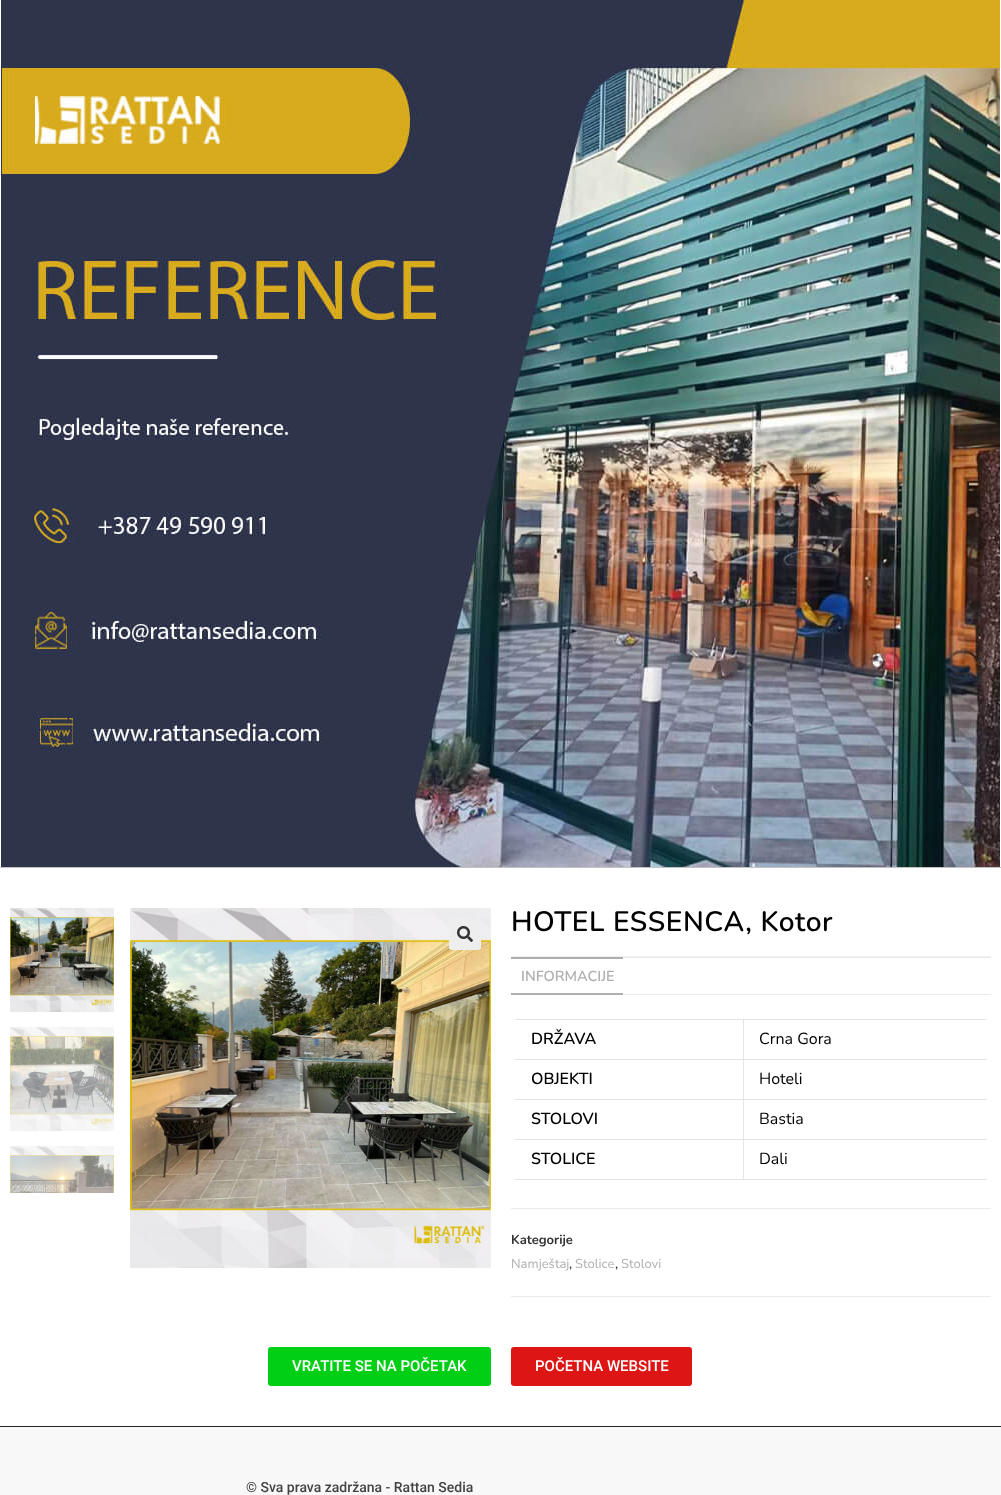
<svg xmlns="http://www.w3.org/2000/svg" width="1001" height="1495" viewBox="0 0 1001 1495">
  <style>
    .t1 { font: 600 28px Nunito; letter-spacing: 0.6px; fill: #000; }
    .t2 { font: 600 14.5px Nunito; fill: #afafaf; }
    .t3 { font: 600 16px Nunito; fill: #000; }
    .t4 { font: 16px Nunito; fill: #000; }
    .t5 { font: bold 13px Nunito; fill: #333; }
    .t6 { font: 13px Nunito; fill: #afafaf; }
    .t7 { font: 600 13px Nunito; fill: #333; }
    .t8 { font: 500 15px Roboto; fill: #fff; }
    .t9 { font: 500 14px Roboto; fill: #434343; }
  </style>
  <rect width="100%" height="100%" fill="#fff"/>
  <rect x="0" y="867" width="1001" height="1" fill="#c2c2c2"/>
  <image x="1" y="0" width="999" height="867" href="images/1.png"/>
  <image x="10" y="908" width="104" height="104" href="images/2.png"/>
  <image x="10" y="1027" width="104" height="104" href="images/3.png"/>
  <image x="10" y="1146" width="104" height="47" href="images/4.png"/>
  <image x="130" y="908" width="361" height="360" href="images/5.png"/>
  <rect x="449" y="918" width="32" height="32" rx="3" fill="#eee"/>
  <image x="457" y="926" width="16" height="16" href="images/6.png"/>
  <rect x="511" y="956" width="480" height="1" fill="#f1f1f1"/>
  <text x="511" y="931" class="t1">HOTEL ESSENCA, Kotor</text>
  <rect x="623" y="957" width="368" height="1" fill="#eaeaea"/>
  <rect x="623" y="994" width="368" height="1" fill="#eaeaea"/>
  <rect x="511" y="957" width="112" height="2" fill="#afafaf"/>
  <rect x="511" y="993" width="112" height="2" fill="#afafaf"/>
  <text x="521" y="981" class="t2">INFORMACIJE</text>
  <rect x="516" y="1019" width="470" height="1" fill="#e4e4e4"/>
  <rect x="743" y="1179" width="244" height="1" fill="#e4e4e4"/>
  <rect x="743" y="1139" width="1" height="41" fill="#e4e4e4"/>
  <rect x="743" y="1139" width="244" height="1" fill="#e4e4e4"/>
  <rect x="743" y="1099" width="1" height="41" fill="#e4e4e4"/>
  <rect x="743" y="1099" width="244" height="1" fill="#e4e4e4"/>
  <rect x="743" y="1059" width="1" height="41" fill="#e4e4e4"/>
  <rect x="743" y="1059" width="244" height="1" fill="#e4e4e4"/>
  <rect x="743" y="1019" width="1" height="41" fill="#e4e4e4"/>
  <rect x="515" y="1059" width="229" height="1" fill="#e4e4e4"/>
  <text x="531" y="1044" class="t3">DRŽAVA</text>
  <text x="759" y="1044" class="t4">Crna Gora</text>
  <rect x="515" y="1099" width="229" height="1" fill="#e4e4e4"/>
  <text x="531" y="1084" class="t3">OBJEKTI</text>
  <text x="759" y="1084" class="t4">Hoteli</text>
  <rect x="515" y="1139" width="229" height="1" fill="#e4e4e4"/>
  <text x="531" y="1124" class="t3">STOLOVI</text>
  <text x="759" y="1124" class="t4">Bastia</text>
  <rect x="515" y="1179" width="229" height="1" fill="#e4e4e4"/>
  <text x="531" y="1164" class="t3">STOLICE</text>
  <text x="759" y="1164" class="t4">Dali</text>
  <rect x="511" y="1208" width="480" height="1" fill="#eaeaea"/>
  <rect x="511" y="1296" width="480" height="1" fill="#eaeaea"/>
  <text x="511" y="1244" class="t5">Kategorije</text>
  <text x="511" y="1268" class="t6">Namještaj</text>
  <text x="569" y="1268" class="t7">,</text>
  <text x="575" y="1268" class="t6">Stolice</text>
  <text x="615" y="1268" class="t7">,</text>
  <text x="621" y="1268" class="t6">Stolovi</text>
  <rect x="268" y="1347" width="223" height="39" rx="3" fill="#00cf15"/>
  <text x="292" y="1371" class="t8">VRATITE SE NA POČETAK</text>
  <rect x="511" y="1347" width="181" height="39" rx="3" fill="#de1515"/>
  <text x="535" y="1371" class="t8">POČETNA WEBSITE</text>
  <rect x="0" y="1427" width="1001" height="68" fill="#f8f8f8"/>
  <rect x="0" y="1426" width="1001" height="1" fill="#252424"/>
  <text x="246" y="1492" class="t9">© Sva prava zadržana - Rattan Sedia</text>
</svg>
